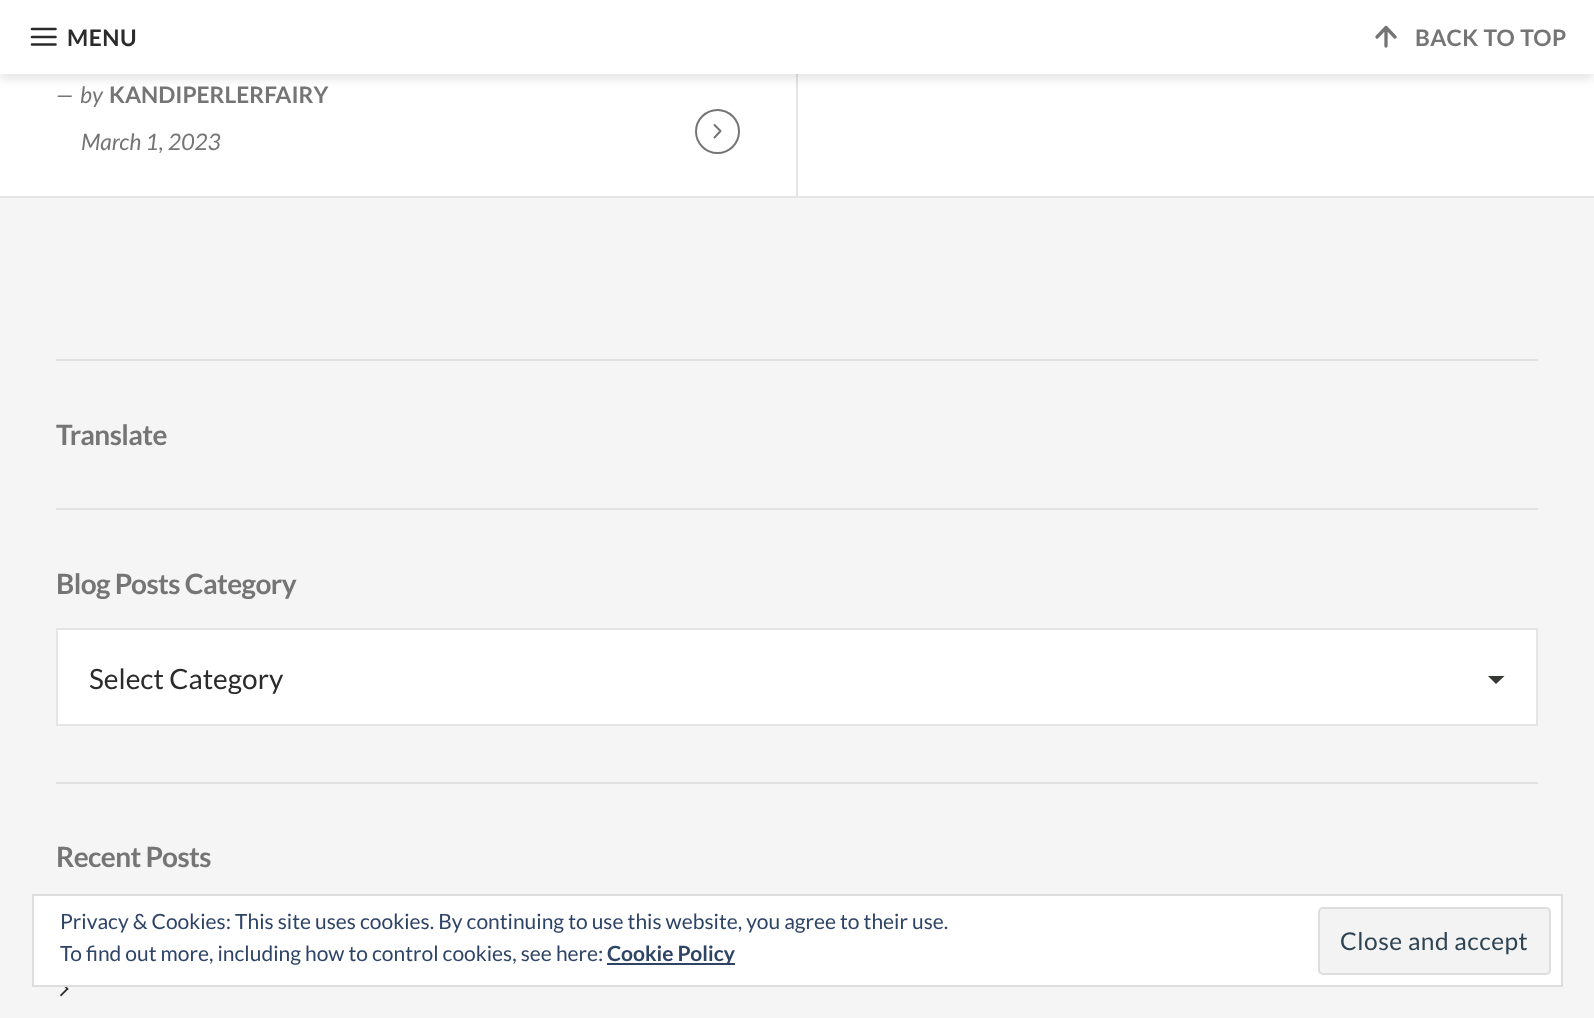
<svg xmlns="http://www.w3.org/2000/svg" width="1594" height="1018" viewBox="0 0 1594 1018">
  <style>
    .t1 { font: bold 22.75px Lato; letter-spacing: 0.5px; fill: #2b2b2b; }
    .t2 { font: bold 22.75px Lato; letter-spacing: 0.5px; fill: #757575; }
    .t3 { font: italic 22.75px Lato; fill: #757575; }
    .t4 { font: bold 22.75px Lato; fill: #757575; }
    .t5 { font: bold 28px Lato; letter-spacing: -0.6px; fill: #757575; }
    .t6 { font: 28px Lato; fill: #2b2b2b; }
    .t7 { font: 21px Lato; fill: #2e4467; }
    .t8 { font: bold 21px Lato; fill: #2e4467; }
    .t9 { font: 24.5px Lato; letter-spacing: 0.5px; fill: #2e4453; }
  </style>
  <defs>
    <clipPath id="clip1"><rect x="1488" y="676" width="17" height="17"/></clipPath>
  </defs>
  <rect width="100%" height="100%" fill="#f5f5f5"/>
  <rect x="0" y="74" width="1594" height="122" fill="#fff"/>
  <rect x="796" y="74" width="2" height="122" fill="#e5e5e5"/>
  <rect x="0" y="2" width="1594" height="73" fill="#00000012" filter="blur(6px)"/>
  <rect x="0" y="7" width="1594" height="74" fill="#0000000d" filter="blur(4.5px)"/>
  <rect x="0" y="0" width="1594" height="74" fill="#fff"/>
  <path d="M32 37H55.5M32 29H55.5M32 44.5H55.5" fill="none" stroke="#2b2b2b" stroke-width="2.6" stroke-linecap="round" stroke-linejoin="round"/>
  <text x="67" y="46" class="t1">MENU</text>
  <path d="M1386 46V27.5M1377 37L1386 27.5L1395 37" fill="none" stroke="#757575" stroke-width="3.3" stroke-linecap="round" stroke-linejoin="round"/>
  <text x="1415" y="46" class="t2">BACK TO TOP</text>
  <text x="56" y="103" class="t3">—</text>
  <text x="80" y="103" class="t3">by</text>
  <text x="109" y="103" class="t4">KANDIPERLERFAIRY</text>
  <text x="81" y="150" class="t3">March 1, 2023</text>
  <circle cx="717.5" cy="131.5" r="21.5" fill="none" stroke="#757575" stroke-width="2"/>
  <path d="M714.5 137.5L720.5 131L714.5 125" fill="none" stroke="#757575" stroke-width="2" stroke-linecap="round" stroke-linejoin="round"/>
  <rect x="0" y="196" width="1594" height="2" fill="#e5e5e5"/>
  <rect x="56" y="359" width="1482" height="2" fill="#e1e1e1"/>
  <text x="56" y="445" class="t5">Translate</text>
  <rect x="56" y="508" width="1482" height="2" fill="#e1e1e1"/>
  <text x="56" y="594" class="t5">Blog Posts Category</text>
  <rect x="58" y="630" width="1478" height="94" fill="#fff"/>
  <g clip-path="url(#clip1)">
    <path d="M1487.5 675.5H1505L1496 684Z" fill="#353833"/>
  </g>
  <rect x="57" y="629" width="1480" height="96" fill="none" stroke="#e5e5e5" stroke-width="2"/>
  <text x="89" y="689" class="t6">Select Category</text>
  <rect x="56" y="782" width="1482" height="2" fill="#e1e1e1"/>
  <text x="56" y="867" class="t5">Recent Posts</text>
  <path d="M60 982.5L61 981.5L68.5 989L67.5 990Z" fill="#2b2b2b"/>
  <path d="M60 995L67.5 987.5L68.5 989L61 996.5Z" fill="#2b2b2b"/>
  <rect x="33" y="895" width="1529" height="91" fill="#fff" stroke="#dedede" stroke-width="2"/>
  <text x="60" y="929" class="t7">Privacy &amp; Cookies: This site uses cookies. By continuing to use this website, you agree to their use.</text>
  <text x="60" y="961" class="t7">To find out more, including how to control cookies, see here:</text>
  <rect x="607" y="963" width="128" height="2" fill="#2e4467"/>
  <text x="607" y="961" class="t8">Cookie Policy</text>
  <rect x="1319" y="908" width="231" height="66" rx="4" fill="#f3f3f3" stroke="#dedede" stroke-width="2"/>
  <text x="1340" y="950" class="t9">Close and accept</text>
</svg>
